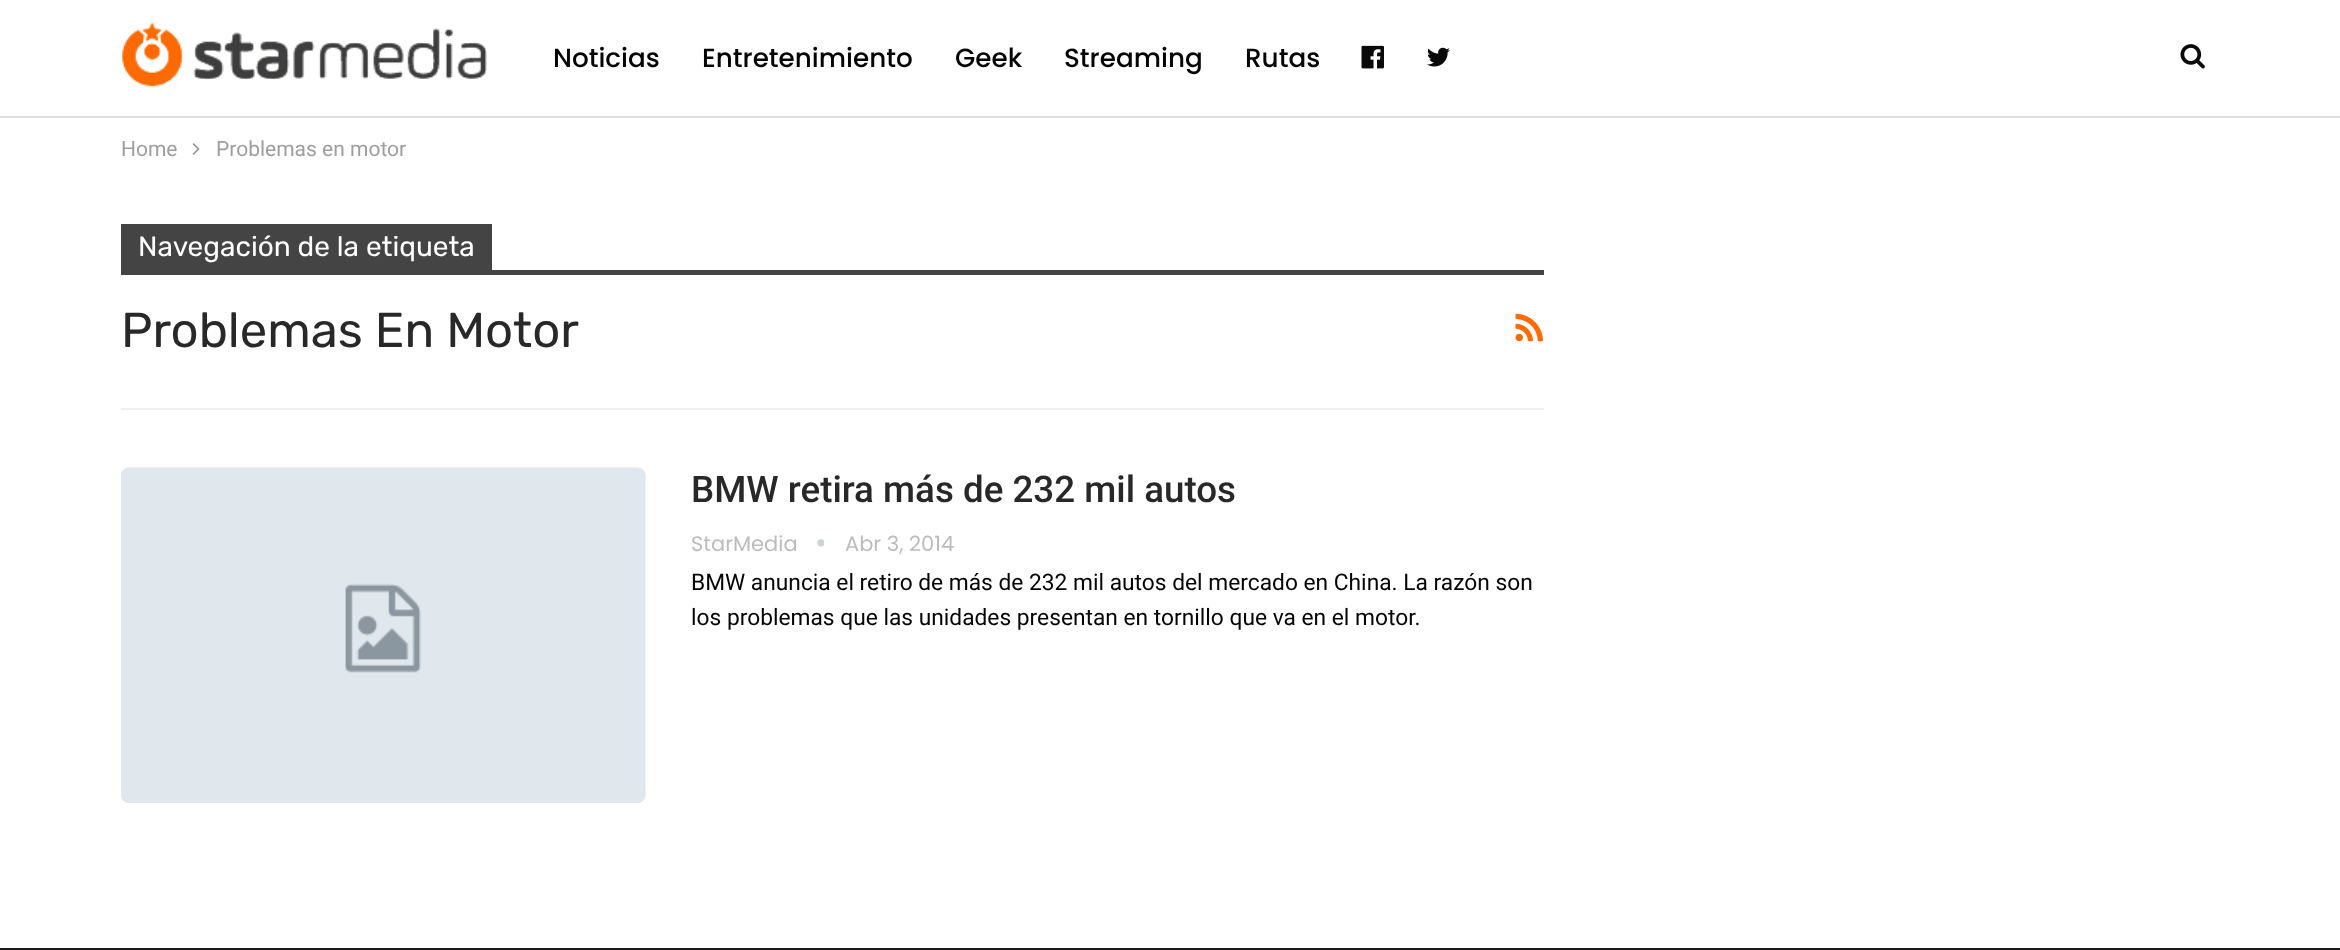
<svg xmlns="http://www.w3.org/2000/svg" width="2340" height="950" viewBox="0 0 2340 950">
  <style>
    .t1 { font: 500 26.25px Poppins; fill: #050505; }
    .t2 { font: 21px Roboto; fill: #9e9e9e; }
    .t3 { font: 300 28px Rubik; fill: #fff; }
    .t4 { font: 300 49px Rubik; fill: #282828; }
    .t5 { font: 500 36.75px Roboto; fill: #282828; }
    .t6 { font: 21px Poppins; fill: #bcbcbc; }
    .t7 { font: 22.75px Roboto; fill: #050505; }
  </style>
  <rect width="100%" height="100%" fill="#fff"/>
  <rect x="0" y="116" width="2340" height="2" fill="#dedede"/>
  <image x="122" y="22" width="365" height="65" href="images/1.png"/>
  <text x="553" y="67" class="t1">Noticias</text>
  <text x="702" y="67" class="t1">Entretenimiento</text>
  <text x="955" y="67" class="t1">Geek</text>
  <text x="1064" y="67" class="t1">Streaming</text>
  <text x="1245" y="67" class="t1">Rutas</text>
  <image x="1361" y="45" width="23" height="24" href="images/2.png"/>
  <image x="1427" y="47" width="23" height="20" href="images/3.png"/>
  <image x="2180" y="44" width="25" height="25" href="images/4.png"/>
  <text x="121" y="156" class="t2">Home</text>
  <image x="192" y="143" width="8" height="12" href="images/5.png"/>
  <text x="216" y="156" class="t2">Problemas en motor</text>
  <rect x="121" y="408" width="1423" height="2" fill="#f0f0f0"/>
  <rect x="121" y="224" width="371" height="46" fill="#444"/>
  <text x="138" y="256" class="t3">Navegación de la etiqueta</text>
  <rect x="121" y="270" width="1423" height="5" fill="#444"/>
  <text x="121" y="347" class="t4">Problemas En Motor</text>
  <image x="1515" y="313" width="28" height="29" href="images/6.png"/>
  <rect x="121" y="467" width="525" height="336" rx="9" fill="#f5f5f5"/>
  <image x="121" y="467" width="525" height="336" href="images/7.png"/>
  <text x="691" y="502" class="t5">BMW retira más de 232 mil autos</text>
  <text x="691" y="551" class="t6">StarMedia</text>
  <image x="817" y="539" width="7" height="8" href="images/8.png"/>
  <text x="845" y="551" class="t6">Abr 3, 2014</text>
  <text x="691" y="590" class="t7">BMW anuncia el retiro de más de 232 mil autos del mercado en China. La razón son</text>
  <text x="691" y="625" class="t7">los problemas que las unidades presentan en tornillo que va en el motor.</text>
  <rect x="0" y="948" width="2340" height="2" fill="#1a1a1a"/>
</svg>
